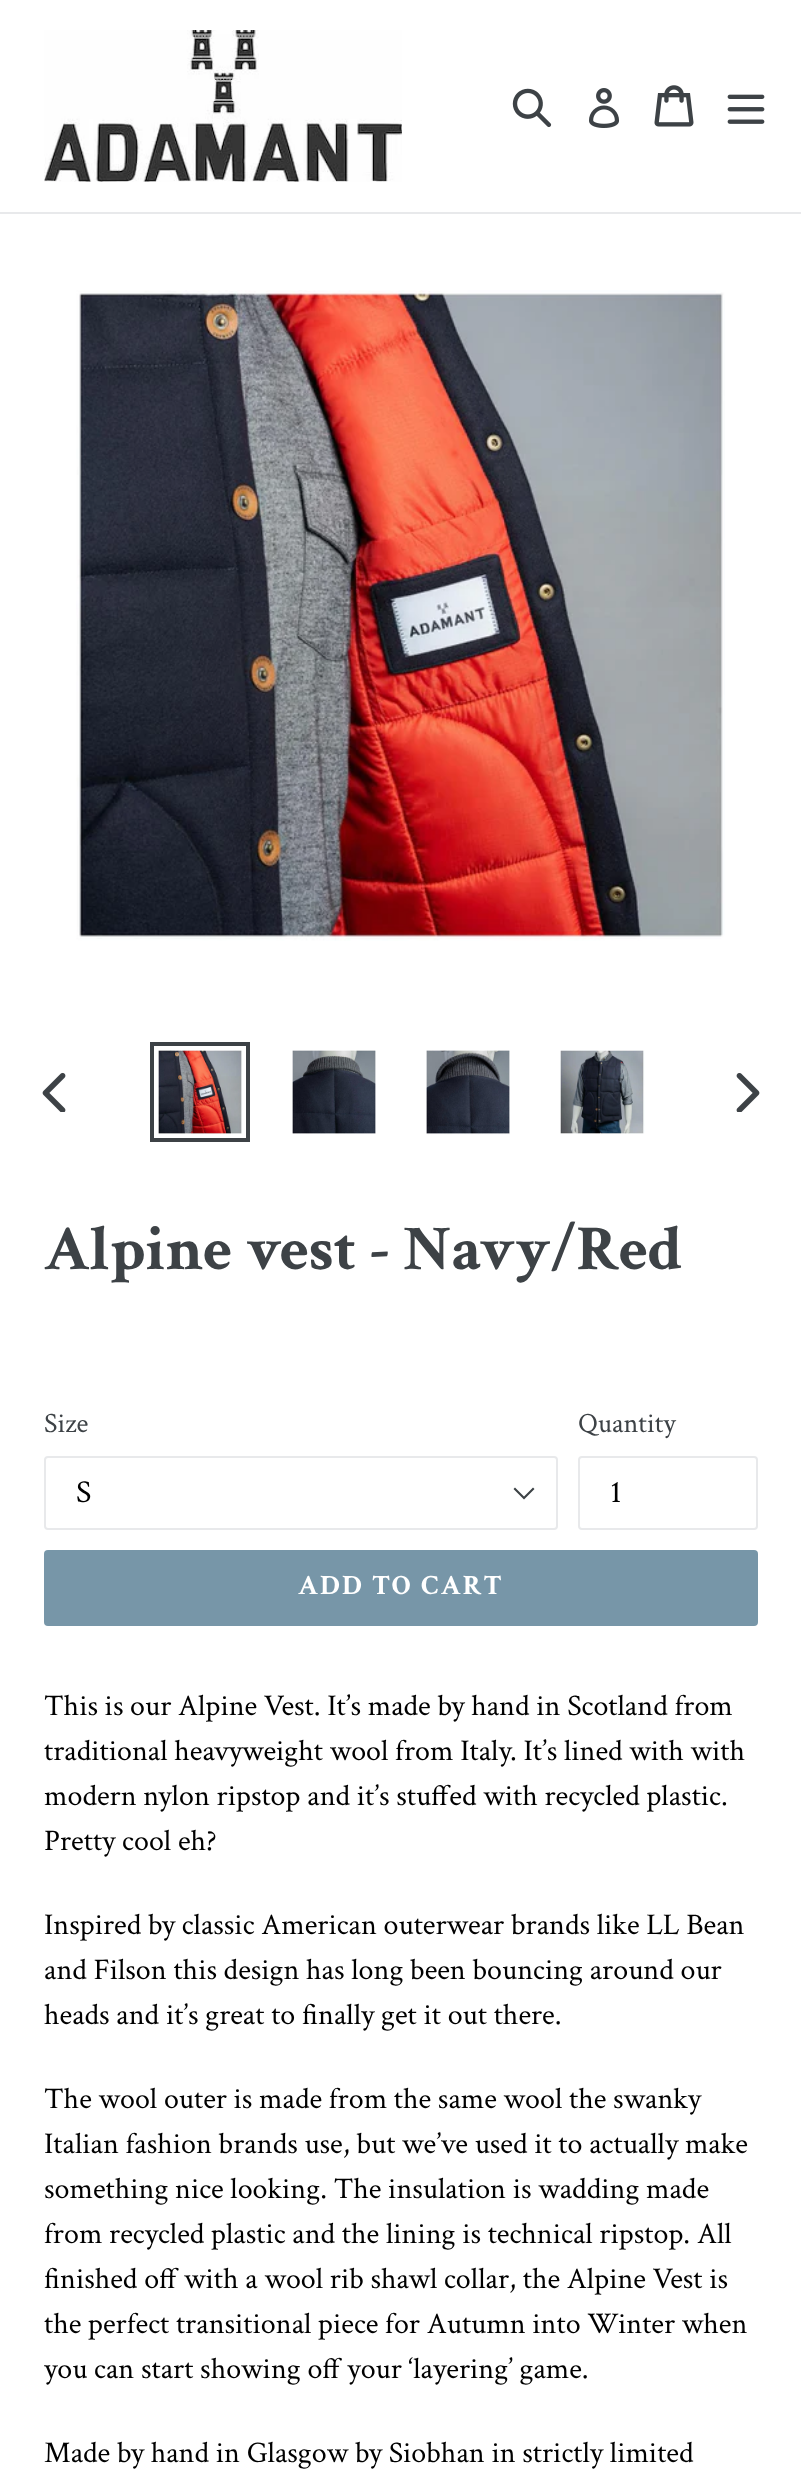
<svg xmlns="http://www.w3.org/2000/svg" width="801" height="2473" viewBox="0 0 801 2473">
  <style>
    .t1 { font: bold 64px Crimson Text; fill: #3d4246; }
    .t2 { font: 28px Crimson Text; fill: #3d4246; }
    .t3 { font: 32px Crimson Text; fill: #000; }
    .t4 { font: bold 28px Crimson Text; letter-spacing: 2.25px; fill: #fff; }
    .t5 { font: 30px Crimson Text; fill: #000; }
  </style>
  <rect width="100%" height="100%" fill="#fff"/>
  <rect x="0" y="212" width="801" height="2" fill="#e8e9eb"/>
  <image x="44" y="30" width="358" height="152" href="images/1.png"/>
  <image x="512" y="88" width="40" height="40" href="images/2.png"/>
  <image x="589" y="88" width="31" height="40" href="images/3.png"/>
  <image x="654" y="85" width="40" height="42" href="images/4.png"/>
  <image x="727" y="94" width="38" height="30" href="images/5.png"/>
  <image x="76" y="290" width="649" height="651" href="images/6.png"/>
  <image x="42" y="1072" width="24" height="40" href="images/7.png"/>
  <rect x="152" y="1044" width="96" height="96" fill="none" stroke="#3d4246" stroke-width="4"/>
  <image x="158" y="1050" width="85" height="84" href="images/8.png"/>
  <image x="292" y="1050" width="84" height="84" href="images/9.png"/>
  <image x="426" y="1050" width="84" height="85" href="images/10.png"/>
  <image x="560" y="1050" width="85" height="84" href="images/11.png"/>
  <image x="736" y="1073" width="24" height="39" href="images/12.png"/>
  <text x="44" y="1269" class="t1">Alpine vest - Navy/Red</text>
  <text x="44" y="1432" class="t2">Size</text>
  <path d="M524 1499.5L513.5 1489L515 1487.5L524 1496.5L533 1487.5L534.5 1489Z" fill="#3d4246"/>
  <rect x="45" y="1457" width="512" height="72" rx="3" fill="none" stroke="#e8e9eb" stroke-width="2"/>
  <text x="76" y="1502" class="t3">S</text>
  <text x="578" y="1432" class="t2">Quantity</text>
  <rect x="579" y="1457" width="178" height="72" rx="3" fill="none" stroke="#e8e9eb" stroke-width="2"/>
  <text x="610" y="1502" class="t3">1</text>
  <rect x="44" y="1550" width="714" height="76" rx="4" fill="#7796a8"/>
  <text x="298" y="1594" class="t4">ADD TO CART</text>
  <text x="44" y="1715" class="t5">This is our Alpine Vest. It’s made by hand in Scotland from</text>
  <text x="44" y="1760" class="t5">traditional heavyweight wool from Italy. It’s lined with with</text>
  <text x="44" y="1805" class="t5">modern nylon ripstop and it’s stuffed with recycled plastic.</text>
  <text x="44" y="1850" class="t5">Pretty cool eh?</text>
  <text x="44" y="1934" class="t5">Inspired by classic American outerwear brands like LL Bean</text>
  <text x="44" y="1979" class="t5">and Filson this design has long been bouncing around our</text>
  <text x="44" y="2024" class="t5">heads and it’s great to finally get it out there.</text>
  <text x="44" y="2108" class="t5">The wool outer is made from the same wool the swanky</text>
  <text x="44" y="2153" class="t5">Italian fashion brands use, but we’ve used it to actually make</text>
  <text x="44" y="2198" class="t5">something nice looking. The insulation is wadding made</text>
  <text x="44" y="2243" class="t5">from recycled plastic and the lining is technical ripstop. All</text>
  <text x="44" y="2288" class="t5">finished off with a wool rib shawl collar, the Alpine Vest is</text>
  <text x="44" y="2333" class="t5">the perfect transitional piece for Autumn into Winter when</text>
  <text x="44" y="2378" class="t5">you can start showing off your ‘layering’ game.</text>
  <text x="44" y="2462" class="t5">Made by hand in Glasgow by Siobhan in strictly limited</text>
</svg>
